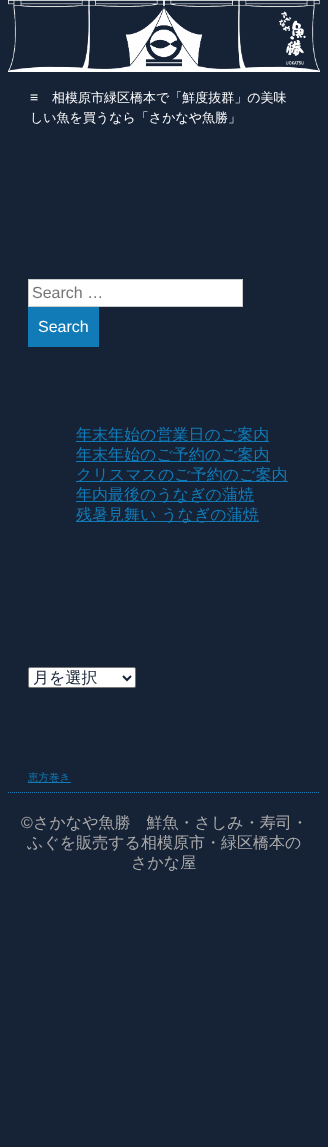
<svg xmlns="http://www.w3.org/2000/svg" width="328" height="1147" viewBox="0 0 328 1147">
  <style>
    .t1 { font: 14px Liberation Sans; fill: #fff; }
    .t2 { font: 500 13px WenQuanYi Zen Hei; fill: #fff; }
    .t3 { font: 16px Liberation Sans; fill: #757575; }
    .t4 { font: 16px Liberation Sans; fill: #fff; }
    .t5 { font: 500 16px WenQuanYi Zen Hei; fill: #117bb8; }
    .t6 { font: 500 16px WenQuanYi Zen Hei; fill: #162236; }
    .t7 { font: 500 10.5px WenQuanYi Zen Hei; fill: #117bb8; }
    .t8 { font: 16px Liberation Sans; fill: #aaa; }
    .t9 { font: 500 16px WenQuanYi Zen Hei; fill: #aaa; }
  </style>
  <rect width="100%" height="100%" fill="#162236"/>
  <image x="8" y="0" width="312" height="72" href="images/1.png"/>
  <text x="30" y="102" class="t1">≡</text>
  <text x="52" y="102" class="t2">相模原市緑区橋本で「鮮度抜群」の美味</text>
  <text x="30" y="122" class="t2">しい魚を買うなら「さかなや魚勝」</text>
  <path d="M8 792.5H320" fill="none" stroke="#117bb8" stroke-dasharray="1 1"/>
  <rect x="28.5" y="279.5" width="214" height="27" fill="#fff" stroke="#ccc"/>
  <text x="32" y="298" class="t3">Search …</text>
  <rect x="28" y="307" width="71" height="40" fill="#117bb8"/>
  <text x="38" y="332" class="t4">Search</text>
  <rect x="76" y="441" width="193" height="1" fill="#117bb8"/>
  <text x="76" y="440" class="t5">年末年始の営業日のご案内</text>
  <rect x="76" y="461" width="194" height="1" fill="#117bb8"/>
  <text x="76" y="460" class="t5">年末年始のご予約のご案内</text>
  <rect x="76" y="481" width="212" height="1" fill="#117bb8"/>
  <text x="76" y="480" class="t5">クリスマスのご予約のご案内</text>
  <rect x="76" y="501" width="178" height="1" fill="#117bb8"/>
  <text x="76" y="500" class="t5">年内最後のうなぎの蒲焼</text>
  <rect x="76" y="521" width="183" height="1" fill="#117bb8"/>
  <text x="76" y="520" class="t5">残暑見舞い うなぎの蒲焼</text>
  <rect x="28.5" y="667.5" width="107" height="20" rx="1.5" fill="#fff" stroke="#767676"/>
  <path d="M123 676L127 680L131 676" fill="none" stroke="#162236" stroke-width="2"/>
  <text x="33" y="683" class="t6">月を選択</text>
  <rect x="28" y="782" width="43" height="1" fill="#117bb8"/>
  <text x="28" y="781" class="t7">恵方巻き</text>
  <text x="21" y="828" class="t8">©</text>
  <text x="33" y="828" class="t9">さかなや魚勝　鮮魚・さしみ・寿司・</text>
  <text x="27" y="848" class="t9">ふぐを販売する相模原市・緑区橋本の</text>
  <text x="131" y="868" class="t9">さかな屋</text>
</svg>
